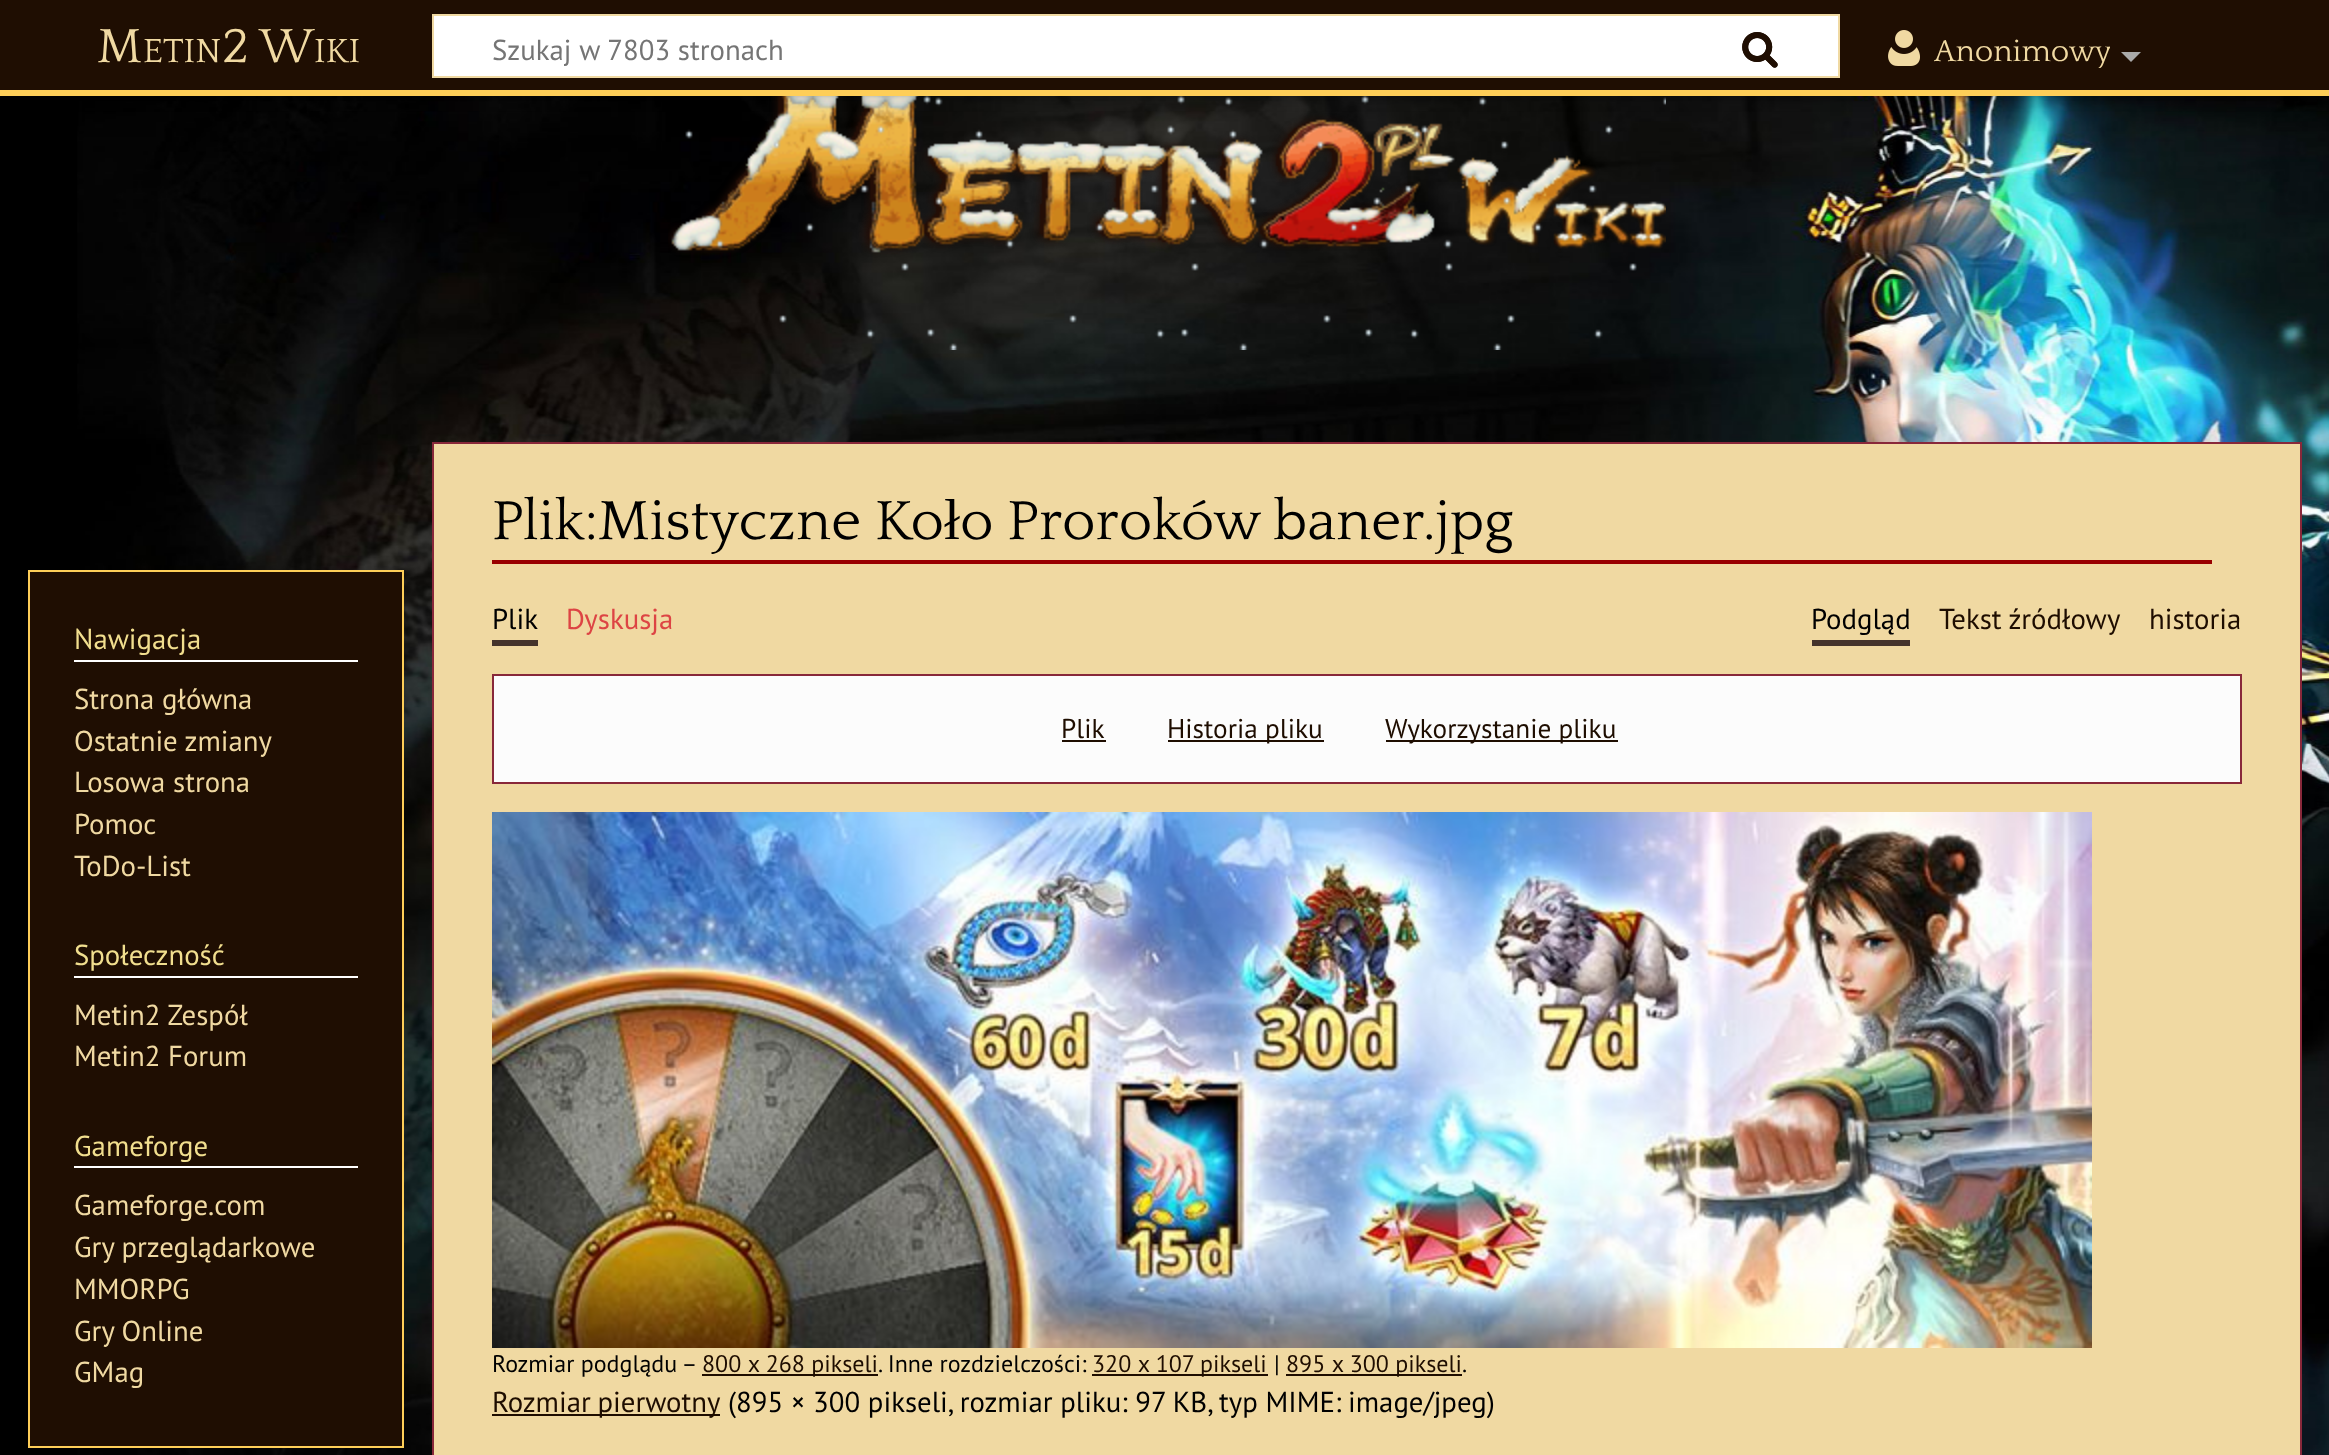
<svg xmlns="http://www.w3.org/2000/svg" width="2329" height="1455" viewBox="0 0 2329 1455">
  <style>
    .t1 { font: 50px Quattrocento; fill: #f0d9a2; }
    .t2 { font: 35px Quattrocento; fill: #f0d9a2; }
    .t3 { font: 28.8px PT Sans; fill: #757575; }
    .t4 { font: 31.75px Quattrocento; fill: #f0d9a2; }
    .t5 { font: 28.8px PT Sans; fill: #f1de8e; }
    .t6 { font: 28.8px PT Sans; fill: #f0d9a2; }
    .t7 { font: 57.5px Quattrocento; fill: #000; }
    .t8 { font: 57.5px Liberation Serif; fill: #000; }
    .t9 { font: 28.8px PT Sans; fill: #000; }
    .t10 { font: 28.8px PT Sans; fill: #d44; }
    .t11 { font: 28.8px PT Sans; fill: #1e0d00; }
    .t12 { font: 27.25px PT Sans; fill: #1e0d00; }
    .t13 { font: 24px PT Sans; fill: #000; }
    .t14 { font: 24px PT Sans; fill: #1e0d00; }
  </style>
  <defs>
    <clipPath id="clip1"><rect x="1934" y="36" width="176" height="32"/></clipPath>
  </defs>
  <rect width="100%" height="100%" fill="#000"/>
  <image x="77" y="96" width="2252" height="1359" href="images/1.png"/>
  <image x="668" y="96" width="998" height="254" href="images/5.png"/>
  <rect x="0" y="90" width="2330" height="6" fill="#00000033" filter="blur(2px)"/>
  <rect x="-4" y="92" width="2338" height="14" fill="#00000012" filter="blur(3px)"/>
  <rect x="0" y="0" width="2329" height="90" fill="#1f0e02"/>
  <text x="97" y="62" class="t1">M</text>
  <text x="143" y="62" class="t2">ETIN</text>
  <text x="222" y="62" class="t1">2 W</text>
  <text x="314" y="62" class="t2">IKI</text>
  <rect x="433" y="15" width="1406" height="62" fill="#fff" stroke="#f0d9a2" stroke-width="2"/>
  <image x="1742" y="32" width="36" height="36" href="images/2.png"/>
  <text x="492" y="60" class="t3">Szukaj w 7803 stronach</text>
  <image x="1742" y="32" width="36" height="36" href="images/3.png"/>
  <image x="1888" y="30" width="32" height="36" href="images/4.png"/>
  <g clip-path="url(#clip1)">
    <text x="1934" y="61" class="t4">Anonimowy</text>
  </g>
  <path d="M2141 52L2131 62L2121 52Z" fill="#aaa"/>
  <rect x="0" y="90" width="2329" height="6" fill="#fece58"/>
  <rect x="29" y="571" width="374" height="876" fill="#1f0e02" stroke="#fece58" stroke-width="2"/>
  <rect x="74" y="660" width="284" height="2" fill="#fff"/>
  <text x="74" y="649" class="t5">Nawigacja</text>
  <text x="74" y="709" class="t6">Strona główna</text>
  <text x="74" y="751" class="t6">Ostatnie zmiany</text>
  <text x="74" y="792" class="t6">Losowa strona</text>
  <text x="74" y="834" class="t6">Pomoc</text>
  <text x="74" y="876" class="t6">ToDo-List</text>
  <rect x="74" y="976" width="284" height="2" fill="#fff"/>
  <text x="74" y="965" class="t5">Społeczność</text>
  <text x="74" y="1025" class="t6">Metin2 Zespół</text>
  <text x="74" y="1066" class="t6">Metin2 Forum</text>
  <rect x="74" y="1166" width="284" height="2" fill="#fff"/>
  <text x="74" y="1156" class="t5">Gameforge</text>
  <text x="74" y="1215" class="t6">Gameforge.com</text>
  <text x="74" y="1257" class="t6">Gry przeglądarkowe</text>
  <text x="74" y="1299" class="t6">MMORPG</text>
  <text x="74" y="1341" class="t6">Gry Online</text>
  <text x="74" y="1382" class="t6">GMag</text>
  <rect x="433" y="443" width="1868" height="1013" fill="#f0d9a2" stroke="#88283a" stroke-width="2"/>
  <rect x="492" y="560" width="1720" height="4" fill="#900"/>
  <text x="492" y="539" class="t7">Plik:Mistyczne Ko</text>
  <text x="944" y="539" class="t8">ł</text>
  <text x="960" y="539" class="t7">o Proroków baner.jpg</text>
  <rect x="492" y="640" width="46" height="6" fill="#45342c"/>
  <text x="492" y="629" class="t9">Plik</text>
  <text x="566" y="629" class="t10">Dyskusja</text>
  <rect x="1812" y="640" width="98" height="6" fill="#45342c"/>
  <text x="1811" y="629" class="t9">Podgląd</text>
  <text x="1939" y="629" class="t11">Tekst źródłowy</text>
  <text x="2149" y="629" class="t11">historia</text>
  <rect x="493" y="675" width="1748" height="108" fill="#fcfcfc" stroke="#88283a" stroke-width="2"/>
  <text x="1061" y="738" class="t12">Plik</text>
  <rect x="1062" y="740" width="44" height="2" fill="#1e0d00"/>
  <rect x="1168" y="740" width="156" height="2" fill="#1e0d00"/>
  <text x="1167" y="738" class="t12">Historia pliku</text>
  <rect x="1386" y="740" width="232" height="2" fill="#1e0d00"/>
  <text x="1385" y="738" class="t12">Wykorzystanie pliku</text>
  <image x="492" y="812" width="1600" height="536" href="images/6.png"/>
  <text x="492" y="1372" class="t13">Rozmiar podglądu –</text>
  <rect x="702" y="1374" width="176" height="2" fill="#1e0d00"/>
  <text x="702" y="1372" class="t14">800 x 268 pikseli</text>
  <text x="878" y="1372" class="t13">. Inne rozdzielczości:</text>
  <rect x="1092" y="1374" width="176" height="2" fill="#1e0d00"/>
  <text x="1092" y="1372" class="t14">320 x 107 pikseli</text>
  <text x="1274" y="1372" class="t13">|</text>
  <rect x="1286" y="1374" width="176" height="2" fill="#1e0d00"/>
  <text x="1286" y="1372" class="t14">895 x 300 pikseli</text>
  <text x="1462" y="1372" class="t13">.</text>
  <rect x="492" y="1414" width="228" height="2" fill="#1e0d00"/>
  <text x="492" y="1412" word-spacing="-1" class="t11">Rozmiar pierwotny</text>
  <text x="728" y="1412" class="t9">(895 × 300 pikseli, rozmiar pliku: 97 KB, typ MIME:</text>
  <text x="1348" y="1412" class="t9">image/jpeg)</text>
</svg>
